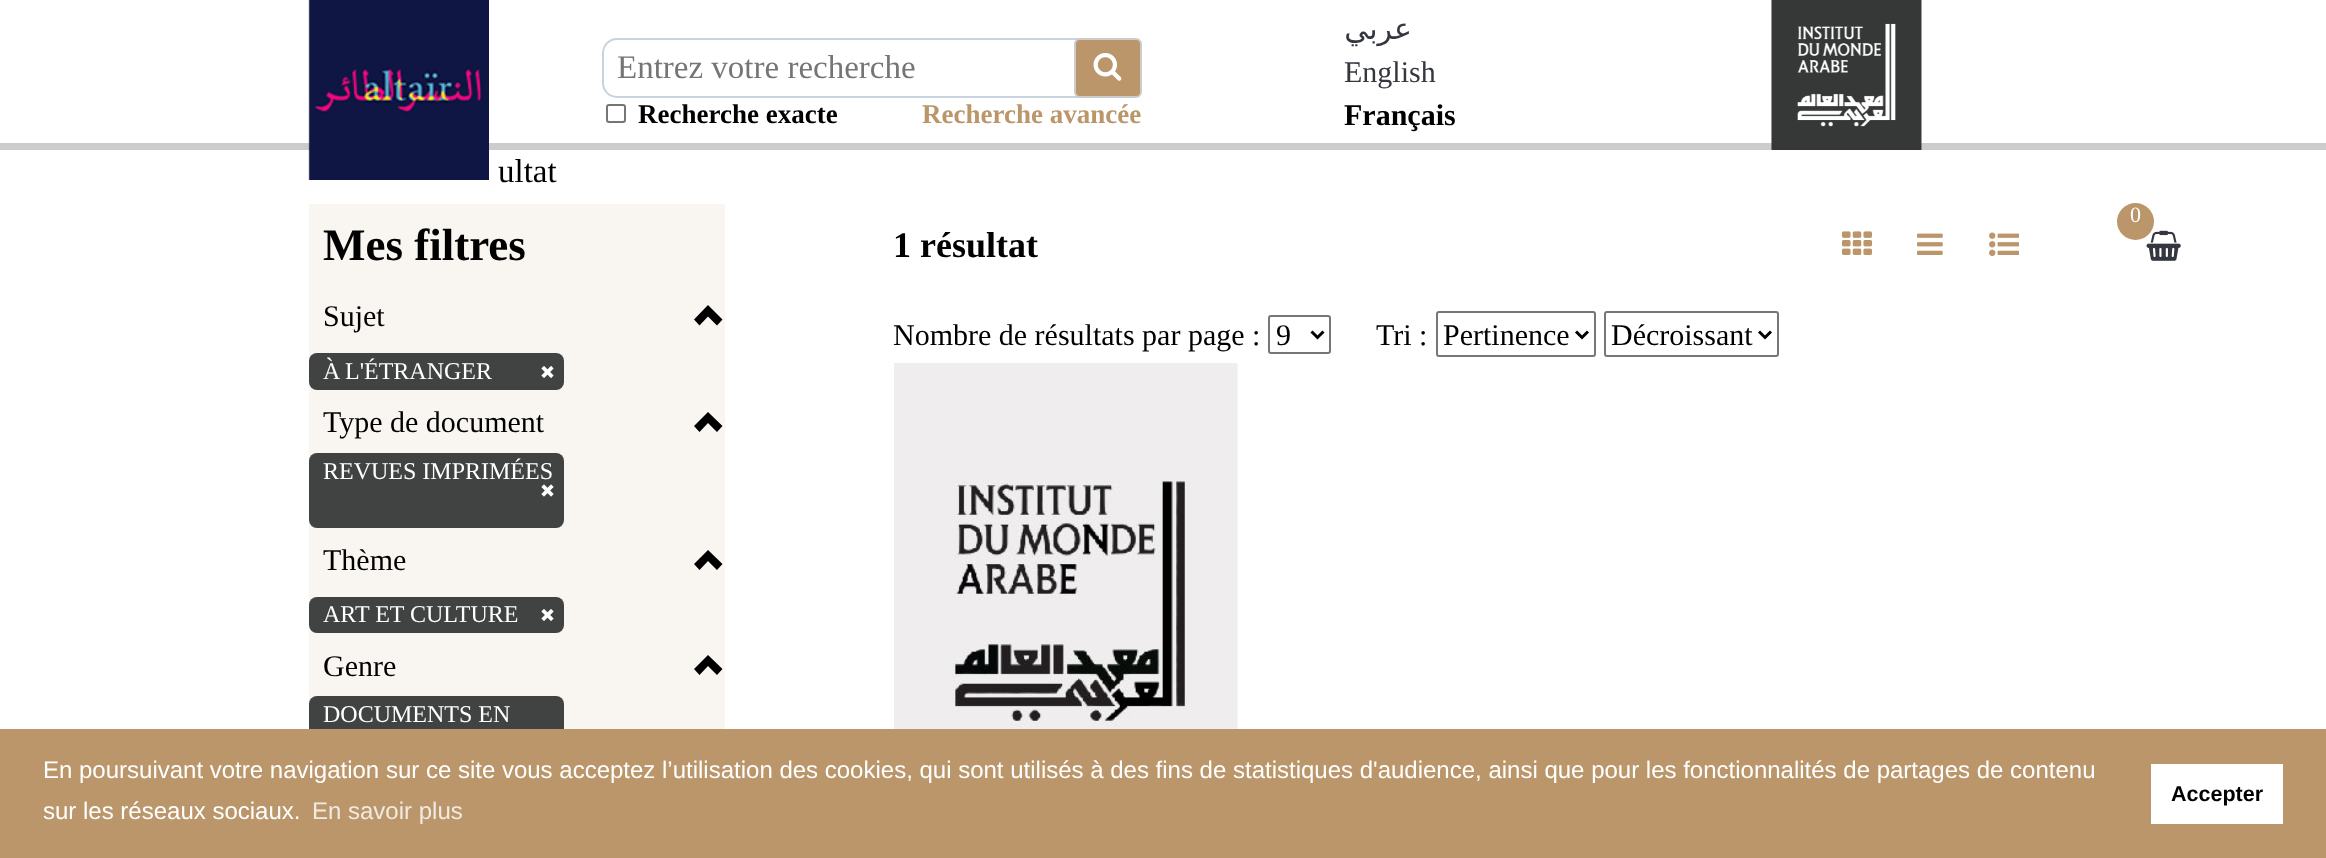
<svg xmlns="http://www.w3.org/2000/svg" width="2326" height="858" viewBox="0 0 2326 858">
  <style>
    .t1 { font: 33px Liberation Serif; fill: #757575; }
    .t2 { font: bold 27px Liberation Serif; fill: #000; }
    .t3 { font: bold 27px Liberation Serif; fill: #ba966a; }
    .t4 { font: 30px DejaVu Sans; direction: rtl; fill: #353740; }
    .t5 { font: 30px Liberation Serif; fill: #353740; }
    .t6 { font: bold 30px Liberation Serif; fill: #000; }
    .t7 { font: 33px Liberation Serif; fill: #000; }
    .t8 { font: 22px Liberation Serif; fill: #fff; }
    .t9 { font: bold 45px Liberation Serif; fill: #000; }
    .t10 { font: 30px Liberation Serif; fill: #000; }
    .t11 { font: 24px Liberation Serif; fill: #fff; }
    .t12 { font: bold 36px Liberation Serif; fill: #000; }
    .t13 { font: 24px Liberation Sans; fill: #fff; }
    .t14 { font: 24px Liberation Sans; fill: #f1eae1; }
    .t15 { font: bold 21.5px Liberation Sans; fill: #000; }
  </style>
  <rect width="100%" height="100%" fill="#fff"/>
  <rect x="0" y="143" width="2326" height="7" fill="#ccc"/>
  <image x="308" y="0" width="181" height="180" href="images/1.png"/>
  <rect x="603" y="39" width="538" height="58" rx="14" fill="none" stroke="#c9d3df" stroke-width="2"/>
  <text x="617" y="78" class="t1">Entrez votre recherche</text>
  <rect x="1075" y="39" width="66" height="58" rx="5" fill="#ba966a" stroke="#ccc" stroke-width="2"/>
  <image x="1093" y="52" width="29" height="29" href="images/2.png"/>
  <rect x="607" y="105" width="18" height="17" rx="2" fill="none" stroke="#767676" stroke-width="2"/>
  <text x="638" y="123" class="t2">Recherche exacte</text>
  <text x="922" y="123" class="t3">Recherche avancée</text>
  <text x="1412" y="39" class="t4">عربي</text>
  <text x="1344" y="82" class="t5">English</text>
  <text x="1344" y="125" class="t6">Français</text>
  <image x="1771" y="0" width="151" height="150" href="images/3.png"/>
  <text x="498" y="182" class="t7">ultat</text>
  <image x="2146" y="230" width="35" height="31" href="images/4.png"/>
  <circle cx="2135.5" cy="221.5" r="18.5" fill="#ba966a"/>
  <text x="2130" y="222" class="t8">0</text>
  <rect x="309" y="204" width="416" height="525" fill="#f9f5f1"/>
  <text x="323" y="260" class="t9">Mes filtres</text>
  <text x="323" y="326" class="t10">Sujet</text>
  <path d="M694 319.5L699.5 325.5L708 316.5L717 325.5L722.5 319.5L708 305Z" fill="#000"/>
  <rect x="309" y="353" width="255" height="37" rx="8" fill="#414242"/>
  <path d="M540 372H556.5C560.5 372 564 375.5 564 379.5C564 383.5 560.5 387 556.5 387H540Z" fill="#414242"/>
  <text x="323" y="379" class="t11">À L'ÉTRANGER</text>
  <image x="541" y="366" width="13" height="12" href="images/5.png"/>
  <text x="323" y="432" class="t10">Type de document</text>
  <path d="M694 426L699.5 432L708 423L717 432L722.5 426L708 412Z" fill="#000"/>
  <rect x="309" y="453" width="255" height="75" rx="8" fill="#414242"/>
  <text x="323" y="479" class="t11">REVUES IMPRIMÉES</text>
  <image x="541" y="484" width="13" height="13" href="images/6.png"/>
  <text x="323" y="570" class="t10">Thème</text>
  <path d="M694 564L699.5 570L708 561L717 570L722.5 564L708 550Z" fill="#000"/>
  <rect x="309" y="597" width="255" height="36" rx="8" fill="#414242"/>
  <path d="M540 615H556.5C560.5 615 564 618.5 564 622.5C564 626.5 560.5 630 556.5 630H540Z" fill="#414242"/>
  <text x="323" y="622" class="t11">ART ET CULTURE</text>
  <image x="541" y="609" width="13" height="12" href="images/5.png"/>
  <text x="323" y="676" class="t10">Genre</text>
  <path d="M694 669L699.5 675L708 666L717 675L722.5 669L708 655Z" fill="#000"/>
  <rect x="309" y="696" width="255" height="149" rx="8" fill="#414242"/>
  <text x="323" y="722" class="t11">DOCUMENTS EN</text>
  <text x="893" y="257" class="t12">1 résultat</text>
  <image x="1842" y="231" width="30" height="24" href="images/7.png"/>
  <image x="1917" y="233" width="26" height="22" href="images/8.png"/>
  <image x="1989" y="232" width="30" height="25" href="images/9.png"/>
  <text x="893" y="345" class="t10">Nombre de résultats par page :</text>
  <rect x="1269" y="316" width="61" height="37" rx="2" fill="none" stroke="#767676" stroke-width="2"/>
  <path d="M1311.5 331.5L1317.5 337.5L1323.5 331.5" fill="none" stroke="#000" stroke-width="3"/>
  <text x="1276" y="345" class="t10">9</text>
  <text x="1376" y="345" class="t10">Tri :</text>
  <rect x="1437" y="312" width="158" height="44" rx="2" fill="none" stroke="#767676" stroke-width="2"/>
  <path d="M1576 331.5L1582 337.5L1588 331.5" fill="none" stroke="#000" stroke-width="3"/>
  <text x="1443" y="345" class="t10">Pertinence</text>
  <rect x="1605" y="312" width="173" height="44" rx="2" fill="none" stroke="#767676" stroke-width="2"/>
  <path d="M1759 331.5L1765 337.5L1771 331.5" fill="none" stroke="#000" stroke-width="3"/>
  <text x="1611" y="345" class="t10">Décroissant</text>
  <image x="894" y="363" width="344" height="366" href="images/10.png"/>
  <rect x="0" y="729" width="2326" height="129" fill="#ba966a"/>
  <text x="43" y="778" class="t13">En poursuivant votre navigation sur ce site vous acceptez l’utilisation des cookies, qui sont utilisés à des fins de statistiques d'audience, ainsi que pour les fonctionnalités de partages de contenu</text>
  <text x="43" y="819" class="t13">sur les réseaux sociaux.</text>
  <text x="312" y="819" class="t14">En savoir plus</text>
  <rect x="2151" y="764" width="132" height="60" fill="#fff"/>
  <text x="2171" y="801" class="t15">Accepter</text>
</svg>
